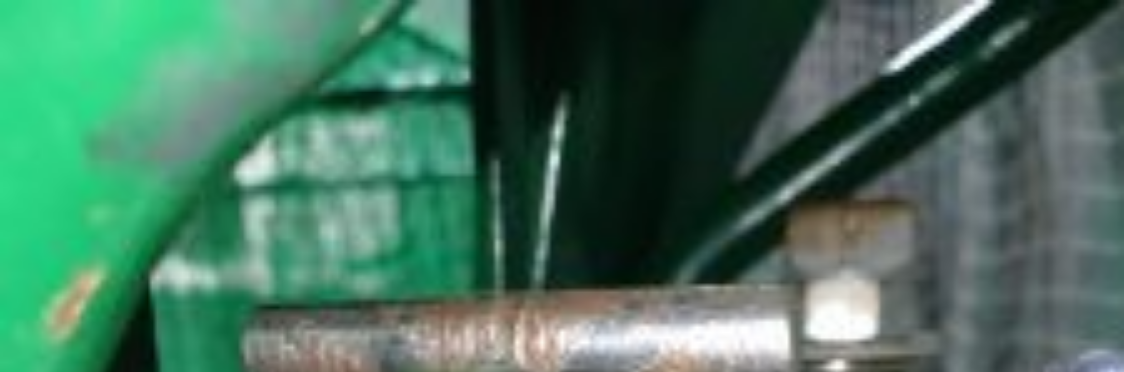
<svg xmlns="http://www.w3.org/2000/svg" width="1124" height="372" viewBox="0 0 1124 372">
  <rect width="100%" height="100%" fill="#fff"/>
  <image x="0" y="0" width="1124" height="372" href="images/1.png"/>
</svg>
